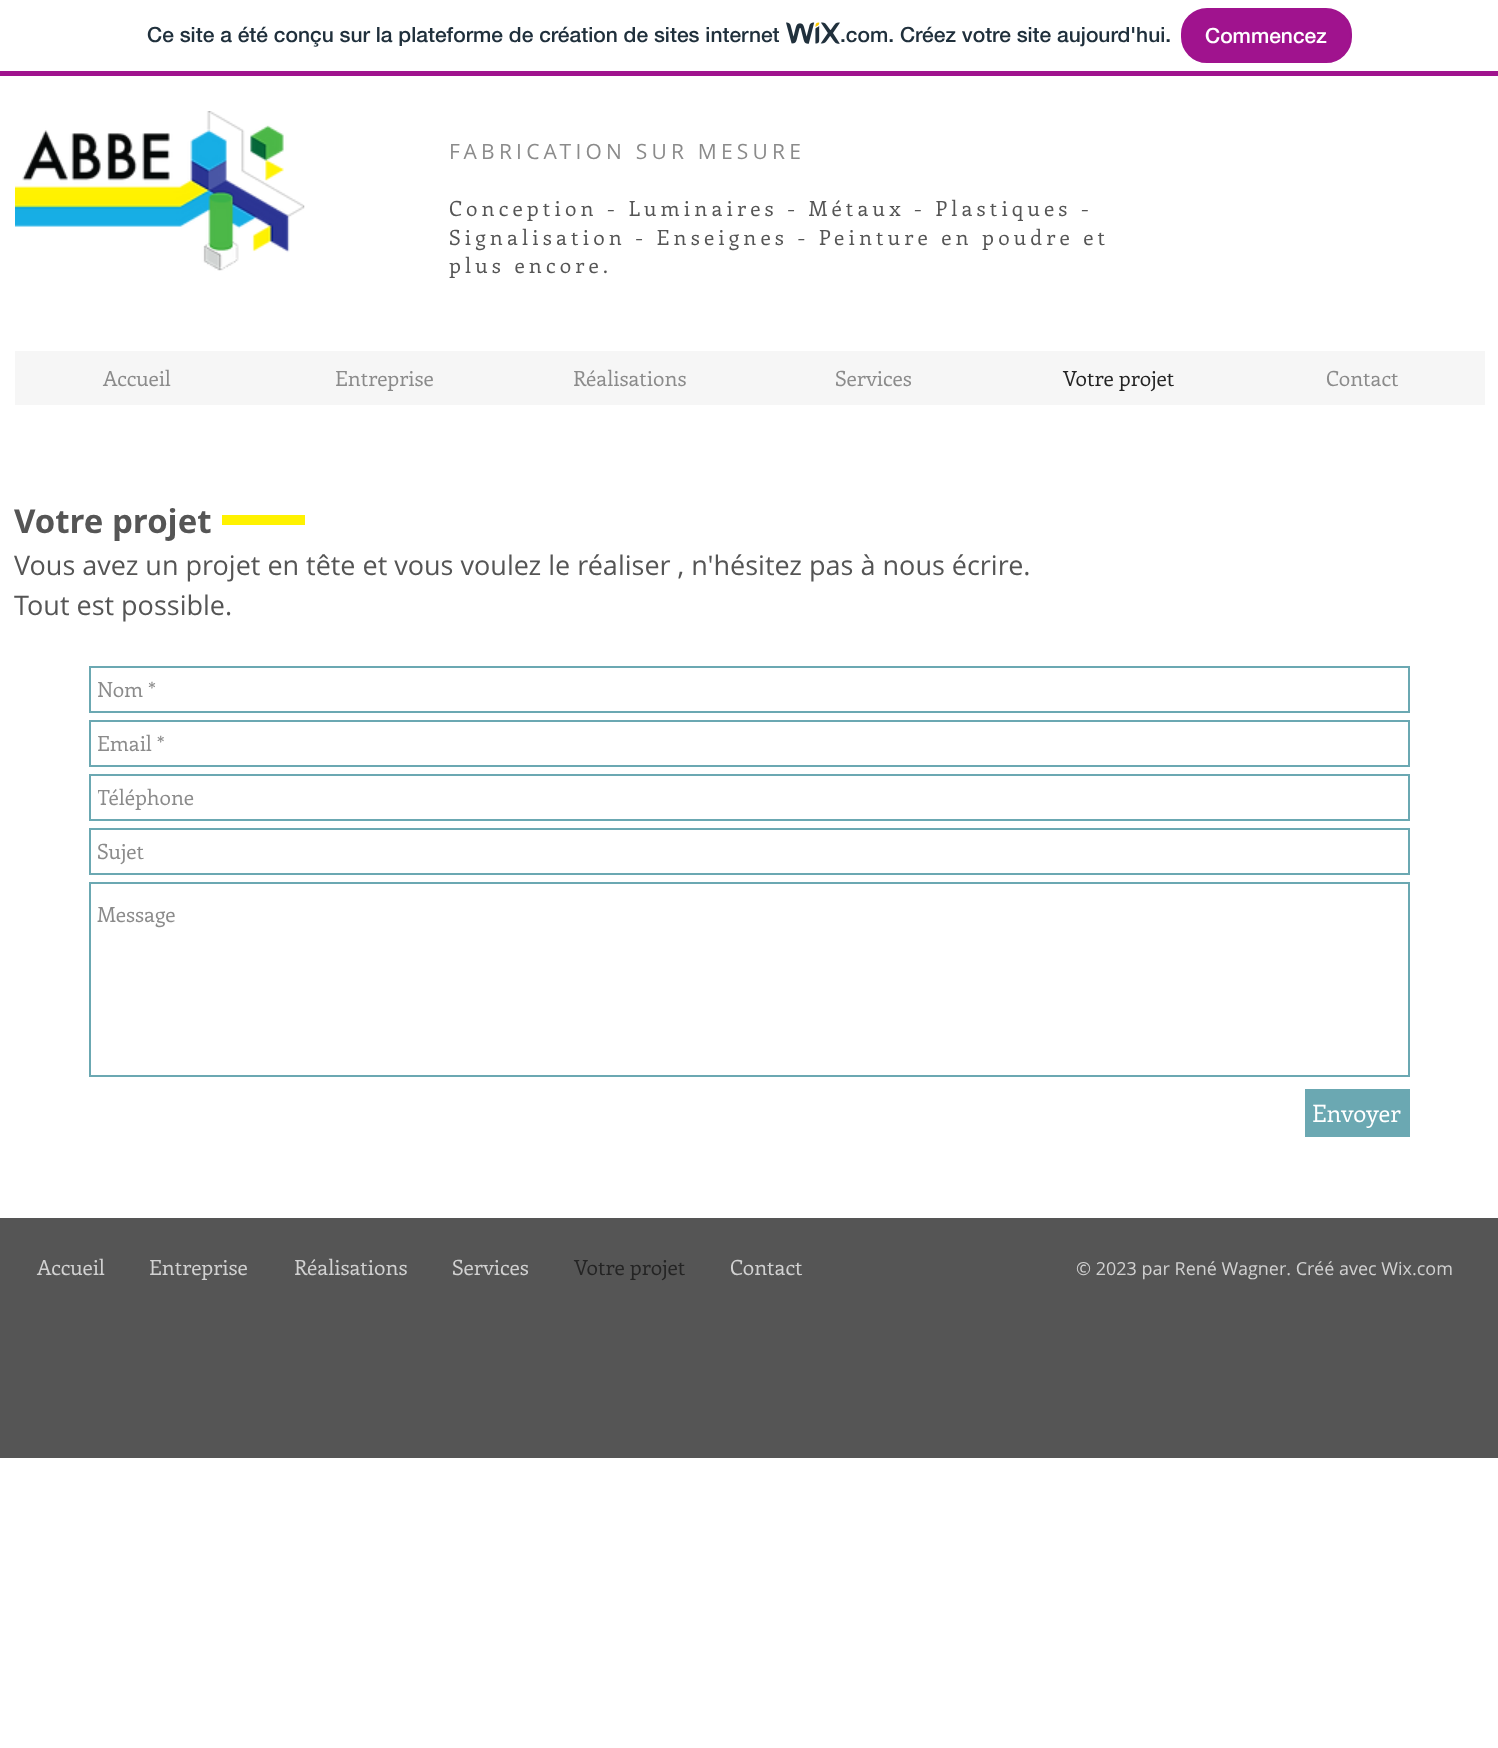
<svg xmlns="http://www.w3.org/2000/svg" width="1498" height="1748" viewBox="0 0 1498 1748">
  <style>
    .t1 { font: 500 21px 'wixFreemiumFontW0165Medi'; fill: #20303c; }
    .t2 { font: 500 21px 'wixFreemiumFontW0165Medi'; fill: #fff; }
    .t3 { font: 21px Open Sans; letter-spacing: 4.2px; fill: #8b8b8b; }
    .t4 { font: 21px Enriqueta; letter-spacing: 4.2px; fill: #555; }
    .t5 { font: 21px Enriqueta; fill: #8b8b8b; }
    .t6 { font: 21px Enriqueta; fill: #242424; }
    .t7 { font: bold 33px Open Sans; fill: #555; }
    .t8 { font: 27px Open Sans; fill: #555; }
    .t9 { font: 24px Enriqueta; fill: #fff; }
    .t10 { font: 21px Enriqueta; fill: #d1d1d1; }
    .t11 { font: 18px Open Sans; fill: #d1d1d1; }
  </style>
  <defs>
    <clipPath id="clip1"><rect x="98" y="783" width="1306" height="29"/></clipPath>
    <clipPath id="clip2"><rect x="98" y="837" width="1306" height="29"/></clipPath>
  </defs>
  <rect width="100%" height="100%" fill="#fff"/>
  <rect x="0" y="71" width="1498" height="5" fill="#a0138e"/>
  <text x="147" y="42" class="t1">Ce site a été conçu sur la plateforme de création de sites internet</text>
  <image x="786" y="22" width="54" height="22" href="images/1.png"/>
  <text x="840" y="42" class="t1">.com. Créez votre site aujourd'hui.</text>
  <rect x="1182" y="9" width="169" height="53" rx="25" fill="#a0138e" stroke="#a0138e" stroke-width="2"/>
  <text x="1205" y="43" class="t2">Commencez</text>
  <image x="15" y="111" width="290" height="160" href="images/2.png"/>
  <text x="449" y="159" class="t3">FABRICATION SUR MESURE</text>
  <text x="449" y="216" class="t4">Conception - Luminaires - Métaux - Plastiques -</text>
  <text x="449" y="245" class="t4">Signalisation - Enseignes - Peinture en poudre et</text>
  <text x="449" y="273" class="t4">plus encore.</text>
  <rect x="15" y="351" width="1470" height="54" fill="#f6f6f6"/>
  <text x="103" y="386" class="t5">Accueil</text>
  <text x="335" y="386" class="t5">Entreprise</text>
  <text x="573" y="386" class="t5">Réalisations</text>
  <text x="835" y="386" class="t5">Services</text>
  <text x="1063" y="386" class="t6">Votre projet</text>
  <text x="1326" y="386" class="t5">Contact</text>
  <text x="14" y="533" class="t7">Votre projet</text>
  <text x="14" y="575" class="t8">Vous avez un projet en tête et vous voulez le réaliser , n'hésitez pas à nous écrire.</text>
  <text x="14" y="615" class="t8">Tout est possible.</text>
  <rect x="222" y="515" width="83" height="10" fill="#fff200"/>
  <rect x="90" y="667" width="1319" height="45" fill="none" stroke="#6ba8b2" stroke-width="2"/>
  <text x="97" y="697" class="t5">Nom *</text>
  <rect x="90" y="721" width="1319" height="45" fill="none" stroke="#6ba8b2" stroke-width="2"/>
  <text x="97" y="751" class="t5">Email *</text>
  <rect x="90" y="775" width="1319" height="45" fill="none" stroke="#6ba8b2" stroke-width="2"/>
  <g clip-path="url(#clip1)">
    <text x="97" y="805" class="t5">Téléphone</text>
  </g>
  <rect x="90" y="829" width="1319" height="45" fill="none" stroke="#6ba8b2" stroke-width="2"/>
  <g clip-path="url(#clip2)">
    <text x="97" y="859" class="t5">Sujet</text>
  </g>
  <rect x="90" y="883" width="1319" height="193" fill="none" stroke="#6ba8b2" stroke-width="2"/>
  <text x="97" y="922" class="t5">Message</text>
  <rect x="1305" y="1089" width="105" height="48" fill="#6ba8b2"/>
  <text x="1312" y="1122" class="t9">Envoyer</text>
  <rect x="0" y="1218" width="1498" height="240" fill="#555"/>
  <text x="37" y="1275" class="t10">Accueil</text>
  <text x="149" y="1275" class="t10">Entreprise</text>
  <text x="294" y="1275" class="t10">Réalisations</text>
  <text x="452" y="1275" class="t10">Services</text>
  <text x="574" y="1275" class="t6">Votre projet</text>
  <text x="730" y="1275" class="t10">Contact</text>
  <text x="1076" y="1275" class="t11">© 2023 par René Wagner. Créé avec Wix.com</text>
</svg>
